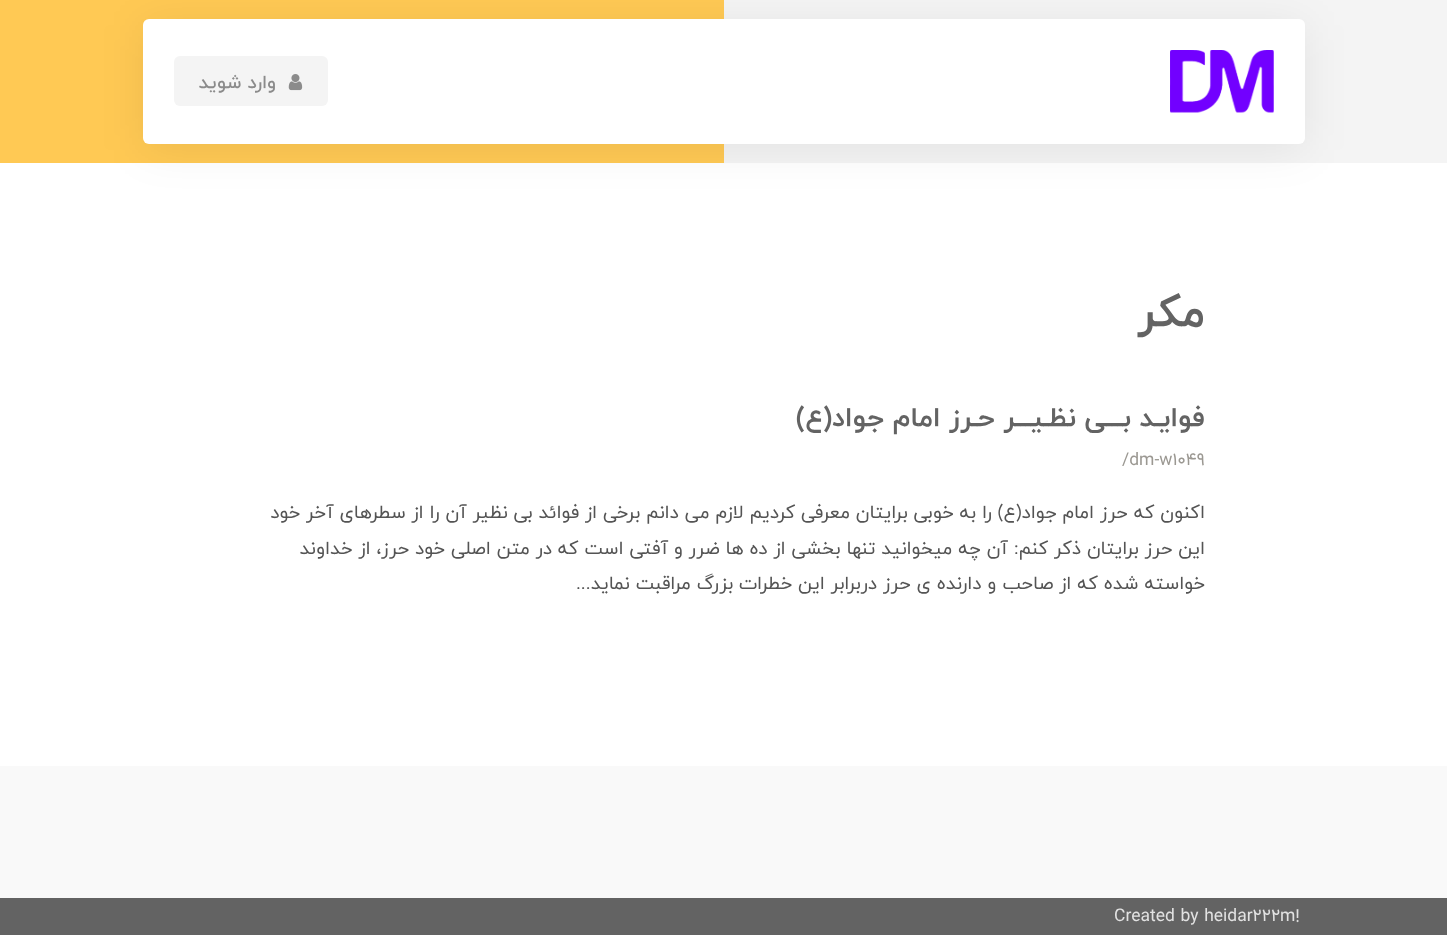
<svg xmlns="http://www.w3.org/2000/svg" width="1447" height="952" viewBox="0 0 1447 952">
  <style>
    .t1 { font: 500 18.75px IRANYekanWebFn; direction: rtl; fill: #8b8b8b; }
    .t2 { font: bold 45px IRANYekanWebFn; direction: rtl; fill: #636363; }
    .t3 { font: bold 27.5px IRANYekanWebFn; direction: rtl; fill: #636363; }
    .t4 { font: 17.5px IRANYekanWebFn; fill: #9b9892; }
    .t5 { font: 18.75px IRANYekanWebFn; direction: rtl; fill: #545454; }
    .t6 { font: 17.5px IRANYekanWebFn; fill: #e2e2e2; }
  </style>
  <rect width="100%" height="100%" fill="#fff"/>
  <rect x="0" y="0" width="724" height="163" fill="#ffc954"/>
  <rect x="724" y="0" width="723" height="163" fill="#f4f4f4"/>
  <rect x="143" y="25" width="1162" height="125" rx="6" fill="#00000012" filter="blur(22px)"/>
  <rect x="143" y="19" width="1162" height="125" rx="6" fill="#fff"/>
  <image x="1170" y="50" width="104" height="63" href="images/1.png"/>
  <rect x="174" y="56" width="154" height="50" rx="6" fill="#f4f4f4"/>
  <image x="288" y="74" width="15" height="17" href="images/2.png"/>
  <text x="276" y="88" class="t1">وارد شوید</text>
  <text x="1205" y="326" class="t2">مکر</text>
  <text x="1205" y="426" class="t3">فوایـد بـــی نظـیـــر حـرز امام جواد(ع)</text>
  <text x="1122" y="465" class="t4">/dm-w1049</text>
  <text x="1205" y="518" class="t5">اکنون که حرز امام جواد(ع) را به خوبی برایتان معرفی کردیم لازم می دانم برخی از فوائد بی نظیر آن را از سطرهای آخر خود</text>
  <text x="1205" y="554" class="t5">این حرز برایتان ذکر کنم: آن چه میخوانید تنها بخشی از ده ها ضرر و آفتی است که در متن اصلی خود حرز، از خداوند</text>
  <text x="1205" y="589" class="t5">خواسته شده که از صاحب و دارنده ی حرز دربرابر این خطرات بزرگ مراقبت نماید...</text>
  <rect x="0" y="766" width="1447" height="132" fill="#f9f9f9"/>
  <rect x="0" y="898" width="1447" height="37" fill="#636363"/>
  <text x="1114" y="921" class="t6">Created by heidar222m!</text>
</svg>
